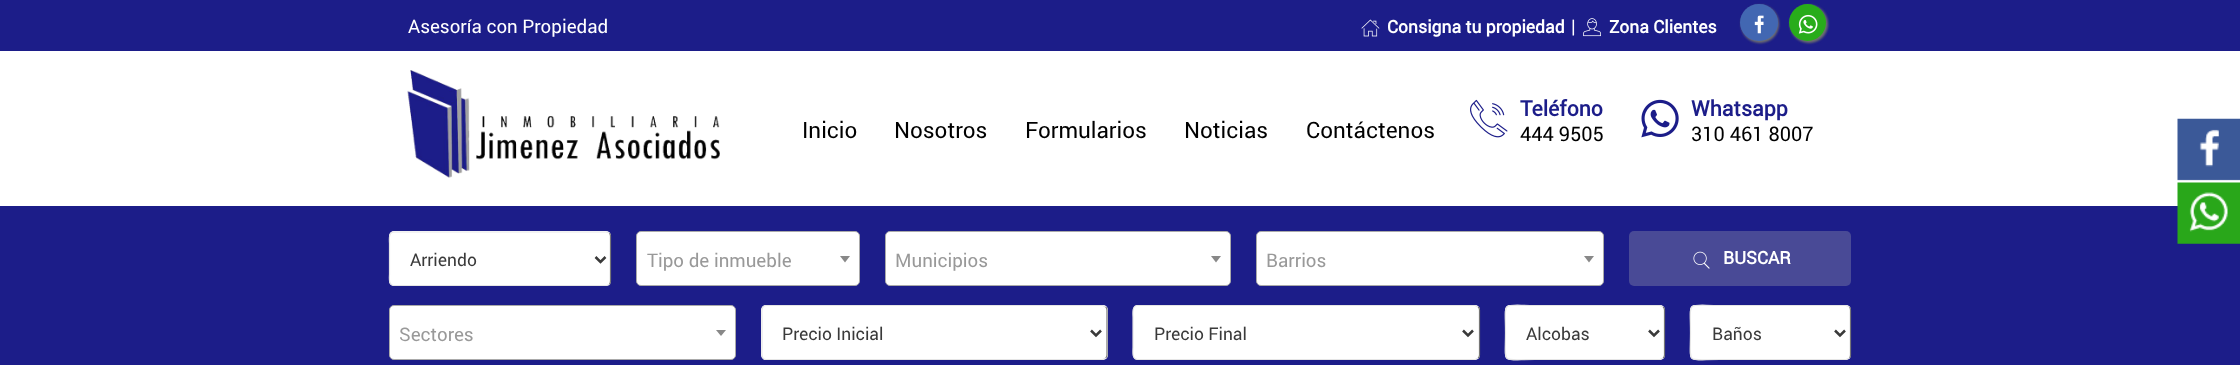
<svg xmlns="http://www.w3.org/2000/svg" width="2240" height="365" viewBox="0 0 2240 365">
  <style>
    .t1 { font: 18.75px Roboto; fill: #fff; }
    .t2 { font: bold 17.5px Roboto; fill: #fff; }
    .t3 { font: 22.5px Roboto; fill: #000; }
    .t4 { font: bold 21.25px Roboto; fill: #1c1d89; }
    .t5 { font: 20px Roboto; fill: #000; }
    .t6 { font: 17.5px Roboto; fill: #3a3a3a; }
    .t7 { font: 18.75px Roboto; fill: #999; }
  </style>
  <rect width="100%" height="100%" fill="#fff"/>
  <rect x="0" y="0" width="2240" height="51" fill="#1c1d89"/>
  <text x="408" y="33" class="t1">Asesoría con Propiedad</text>
  <image x="1361" y="19" width="19" height="18" href="images/1.png"/>
  <text x="1387" y="33" class="t2">Consigna tu propiedad</text>
  <text x="1571" y="33" class="t1">|</text>
  <image x="1583" y="18" width="18" height="19" href="images/2.png"/>
  <text x="1609" y="33" class="t2">Zona Clientes</text>
  <rect x="1741" y="5" width="38" height="38" rx="19" fill="#6f6f6f" filter="blur(1px)"/>
  <rect x="1740" y="4" width="38" height="37" rx="18.5" fill="#4267b2"/>
  <image x="1754" y="15" width="10" height="19" href="images/3.png"/>
  <rect x="1790" y="5" width="38" height="38" rx="19" fill="#6f6f6f" filter="blur(1px)"/>
  <circle cx="1807.5" cy="22.5" r="18.5" fill="#28ac1b"/>
  <image x="1798" y="14" width="20" height="20" href="images/4.png"/>
  <image x="407" y="70" width="313" height="108" href="images/5.png"/>
  <text x="802" y="138" class="t3">Inicio</text>
  <text x="894" y="138" class="t3">Nosotros</text>
  <text x="1025" y="138" class="t3">Formularios</text>
  <text x="1184" y="138" class="t3">Noticias</text>
  <text x="1306" y="138" class="t3">Contáctenos</text>
  <image x="1470" y="99" width="38" height="39" href="images/6.png"/>
  <text x="1520" y="116" class="t4">Teléfono</text>
  <text x="1520" y="141" class="t5">444 9505</text>
  <image x="1641" y="99" width="38" height="39" href="images/7.png"/>
  <text x="1691" y="116" class="t4">Whatsapp</text>
  <text x="1691" y="141" class="t5">310 461 8007</text>
  <image x="2177" y="118" width="63" height="63" href="images/8.png"/>
  <rect x="0" y="206" width="2240" height="159" fill="#1c1d89"/>
  <image x="2177" y="182" width="63" height="62" href="images/9.png"/>
  <rect x="389" y="231" width="222" height="55" rx="5" fill="#fff"/>
  <path d="M609.5 233C610 234 610.5 235 610.5 236V281C610.5 282.5 610 283.5 609.5 284.5" fill="none" stroke="#767676" stroke-width="1.2"/>
  <path d="M609.5 284.5L606.5 285.5H394C388 285.5 389.5 277 389.5 274V244C389.5 240.5 388 232 394 232H606L609.5 233" fill="none" stroke="#e5e5e5" stroke-width="1.2"/>
  <path d="M595.5 257L600.5 262L605.5 257" fill="none" stroke="#3a3a3a" stroke-width="2.5"/>
  <text x="410" y="266" class="t6">Arriendo</text>
  <rect x="636.5" y="231.5" width="223" height="54" rx="4.5" fill="#fff" stroke="#aaa"/>
  <text x="647" y="267" class="t7">Tipo de inmueble</text>
  <path d="M840 256H850L845 262.5Z" fill="#888"/>
  <rect x="885.5" y="231.5" width="345" height="54" rx="4.5" fill="#fff" stroke="#aaa"/>
  <text x="895" y="267" class="t7">Municipios</text>
  <path d="M1211 256H1221L1216 262.5Z" fill="#888"/>
  <rect x="1256.5" y="231.5" width="347" height="54" rx="4.5" fill="#fff" stroke="#aaa"/>
  <text x="1266" y="267" class="t7">Barrios</text>
  <path d="M1584 256H1594L1589 262.5Z" fill="#888"/>
  <rect x="1629" y="231" width="222" height="55" rx="5" fill="#494a96"/>
  <image x="1693" y="251" width="17" height="18" href="images/10.png"/>
  <text x="1723" y="264" class="t2">BUSCAR</text>
  <rect x="389.5" y="305.5" width="346" height="54" rx="4.5" fill="#fff" stroke="#aaa"/>
  <text x="399" y="341" class="t7">Sectores</text>
  <path d="M716 330H726L721 336Z" fill="#888"/>
  <rect x="761" y="305" width="347" height="55" rx="5" fill="#fff"/>
  <path d="M1105.5 307C1106.5 307.5 1107 309 1107 310V355C1107 356 1106.5 357.5 1105.5 358" fill="none" stroke="#767676" stroke-width="1.2"/>
  <path d="M1105.5 358L1102.5 359.5H766C760.5 359.5 762 350.5 762 347.5V317.5C762 314.5 760.5 305.5 766 305.5H1102.5L1105.5 307" fill="none" stroke="#e5e5e5" stroke-width="1.2"/>
  <path d="M1091 330.5L1096 335.5L1101 330.5" fill="none" stroke="#3a3a3a" stroke-width="2.5"/>
  <text x="782" y="340" class="t6">Precio Inicial</text>
  <rect x="1133" y="305" width="347" height="55" rx="5" fill="#fff"/>
  <path d="M1478 307C1479 307.5 1479.5 309 1479.5 310V355C1479.5 356 1479 357.5 1478 358" fill="none" stroke="#767676" stroke-width="1.2"/>
  <path d="M1478 358L1475 359.5H1137.5C1131.5 359.5 1133 350.5 1133 347.5V317.5C1133 314.5 1131.5 305.5 1137.5 305.5H1475L1478 307" fill="none" stroke="#e5e5e5" stroke-width="1.2"/>
  <path d="M1463 330.5L1468 335.5L1473 330.5" fill="none" stroke="#3a3a3a" stroke-width="2.5"/>
  <text x="1154" y="340" class="t6">Precio Final</text>
  <rect x="1505" y="305" width="160" height="55" rx="5" fill="#fff"/>
  <path d="M1663 307C1664 307.5 1664.5 309 1664.5 310V355C1664.5 356 1664 357.5 1663 358" fill="none" stroke="#767676" stroke-width="1.2"/>
  <path d="M1663 358L1660 359.5H1535C1500 359.5 1505.5 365.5 1505.5 332.5C1505.5 299.5 1500 305.5 1535 305.5H1660L1663 307" fill="none" stroke="#e5e5e5" stroke-width="1.2"/>
  <path d="M1649 330.5L1654 335.5L1659 330.5" fill="none" stroke="#3a3a3a" stroke-width="2.5"/>
  <text x="1526" y="340" class="t6">Alcobas</text>
  <rect x="1690" y="305" width="161" height="55" rx="5" fill="#fff"/>
  <path d="M1849.5 307C1850 307.5 1850.5 309 1850.5 310V355C1850.5 356 1850 357.5 1849.5 358" fill="none" stroke="#767676" stroke-width="1.2"/>
  <path d="M1849.5 358L1846 359.5H1720C1685 359.5 1690.5 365.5 1690.5 332.5C1690.5 299.5 1685 305.5 1720 305.5H1846L1849.5 307" fill="none" stroke="#e5e5e5" stroke-width="1.2"/>
  <path d="M1835 330.5L1840 335.5L1845 330.5" fill="none" stroke="#3a3a3a" stroke-width="2.5"/>
  <text x="1712" y="340" class="t6">Baños</text>
</svg>
